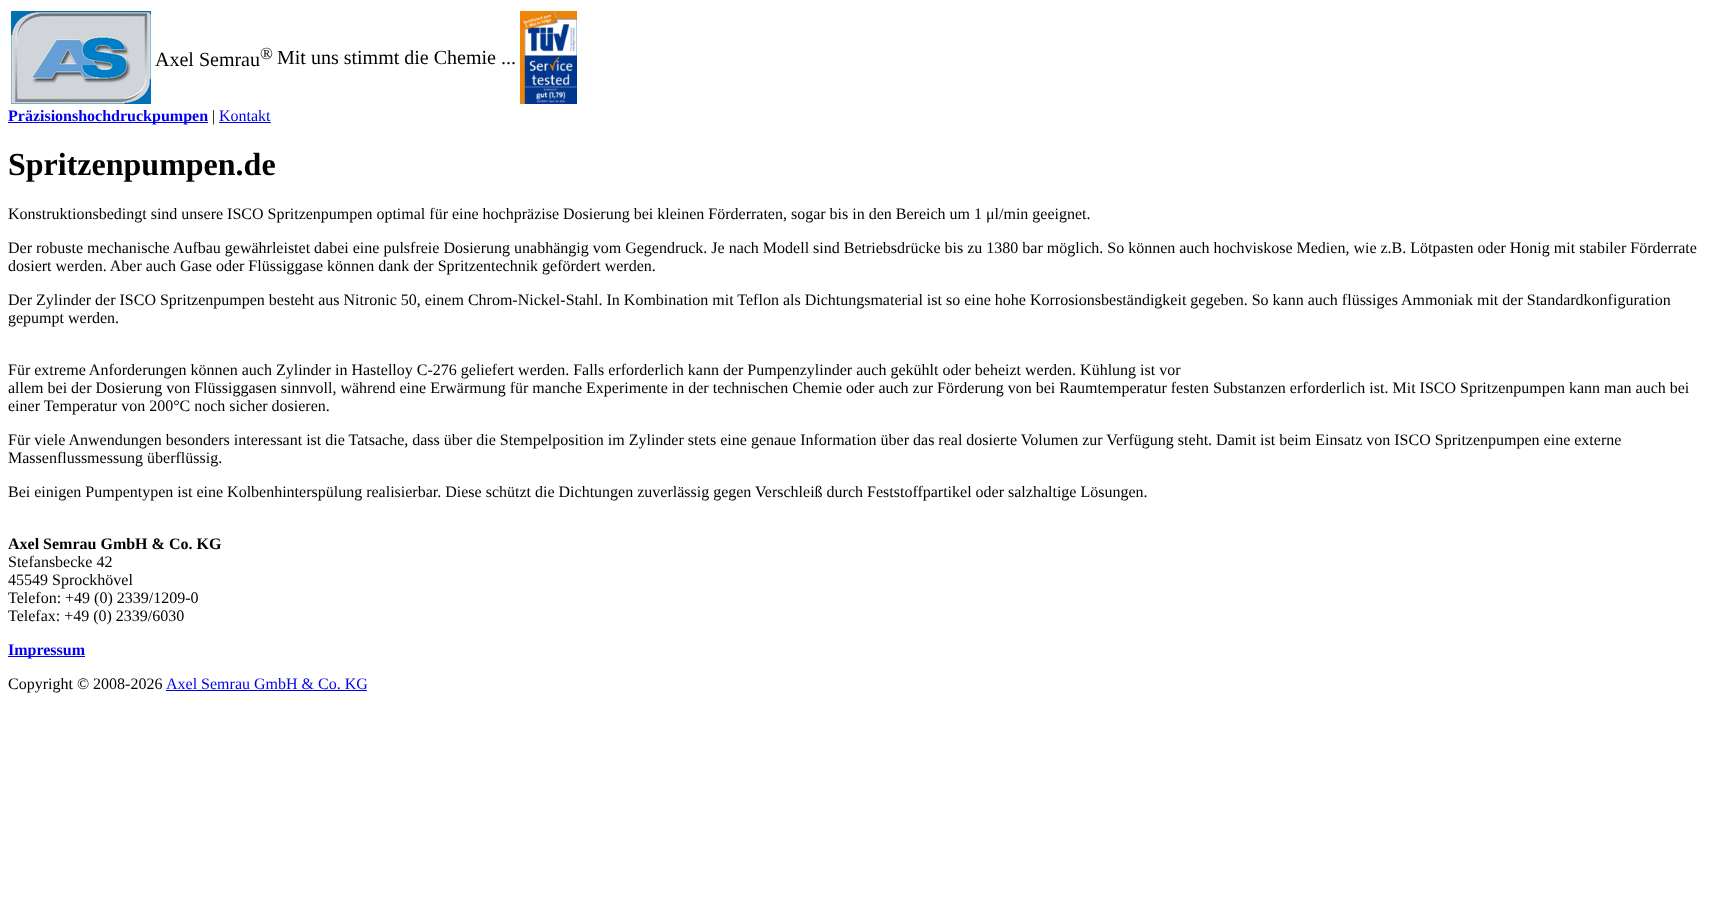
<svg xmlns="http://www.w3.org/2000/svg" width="1709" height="914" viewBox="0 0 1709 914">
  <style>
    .t1 { font: 20px Liberation Serif; fill: #000; }
    .t2 { font: 17px Liberation Serif; fill: #000; }
    .t3 { font: bold 16px Liberation Serif; fill: #00e; }
    .t4 { font: 16px Liberation Serif; fill: #000; }
    .t5 { font: 16px Liberation Serif; fill: #00e; }
    .t6 { font: bold 32px Liberation Serif; fill: #000; }
    .t7 { font: bold 16px Liberation Serif; fill: #000; }
  </style>
  <rect width="100%" height="100%" fill="#fff"/>
  <image x="11" y="11" width="140" height="93" href="images/1.png"/>
  <text x="155" y="66" class="t1">Axel Semrau</text>
  <text x="260" y="59" class="t2">®</text>
  <text x="277" y="64" class="t1">Mit uns stimmt die Chemie ...</text>
  <image x="520" y="11" width="57" height="93" href="images/2.png"/>
  <rect x="8" y="122" width="200" height="1" fill="#00e"/>
  <text x="8" y="121" class="t3">Präzisionshochdruckpumpen</text>
  <text x="212" y="121" class="t4">|</text>
  <text x="219" y="121" class="t5">Kontakt</text>
  <rect x="219" y="122" width="52" height="1" fill="#00e"/>
  <text x="8" y="175" class="t6">Spritzenpumpen.de</text>
  <text x="8" y="219" class="t4">Konstruktionsbedingt sind unsere ISCO Spritzenpumpen optimal für eine hochpräzise Dosierung bei kleinen Förderraten, sogar bis in den Bereich um 1 μl/min geeignet.</text>
  <text x="8" y="253" class="t4">Der robuste mechanische Aufbau gewährleistet dabei eine pulsfreie Dosierung unabhängig vom Gegendruck. Je nach Modell sind Betriebsdrücke bis zu 1380 bar möglich. So können auch hochviskose Medien, wie z.B. Lötpasten oder Honig mit stabiler Förderrate</text>
  <text x="8" y="271" class="t4">dosiert werden. Aber auch Gase oder Flüssiggase können dank der Spritzentechnik gefördert werden.</text>
  <text x="8" y="305" class="t4">Der Zylinder der ISCO Spritzenpumpen besteht aus Nitronic 50, einem Chrom-Nickel-Stahl. In Kombination mit Teflon als Dichtungsmaterial ist so eine hohe Korrosionsbeständigkeit gegeben. So kann auch flüssiges Ammoniak mit der Standardkonfiguration</text>
  <text x="8" y="323" class="t4">gepumpt werden.</text>
  <text x="8" y="375" class="t4">Für extreme Anforderungen können auch Zylinder in Hastelloy C-276 geliefert werden. Falls erforderlich kann der Pumpenzylinder auch gekühlt oder beheizt werden. Kühlung ist vor</text>
  <text x="8" y="393" class="t4">allem bei der Dosierung von Flüssiggasen sinnvoll, während eine Erwärmung für manche Experimente in der technischen Chemie oder auch zur Förderung von bei Raumtemperatur festen Substanzen erforderlich ist. Mit ISCO Spritzenpumpen kann man auch bei</text>
  <text x="8" y="411" class="t4">einer Temperatur von 200°C noch sicher dosieren.</text>
  <text x="8" y="445" class="t4">Für viele Anwendungen besonders interessant ist die Tatsache, dass über die Stempelposition im Zylinder stets eine genaue Information über das real dosierte Volumen zur Verfügung steht. Damit ist beim Einsatz von ISCO Spritzenpumpen eine externe</text>
  <text x="8" y="463" class="t4">Massenflussmessung überflüssig.</text>
  <text x="8" y="497" class="t4">Bei einigen Pumpentypen ist eine Kolbenhinterspülung realisierbar. Diese schützt die Dichtungen zuverlässig gegen Verschleiß durch Feststoffpartikel oder salzhaltige Lösungen.</text>
  <text x="8" y="549" class="t7">Axel Semrau GmbH &amp; Co. KG</text>
  <text x="8" y="567" class="t4">Stefansbecke 42</text>
  <text x="8" y="585" class="t4">45549 Sprockhövel</text>
  <text x="8" y="603" class="t4">Telefon: +49 (0) 2339/1209-0</text>
  <text x="8" y="621" class="t4">Telefax: +49 (0) 2339/6030</text>
  <rect x="8" y="656" width="77" height="1" fill="#00e"/>
  <text x="8" y="655" class="t3">Impressum</text>
  <text x="8" y="689" class="t4">Copyright © 2008-2026</text>
  <text x="166" y="689" class="t5">Axel Semrau GmbH &amp; Co. KG</text>
  <rect x="166" y="690" width="201" height="1" fill="#00e"/>
</svg>
